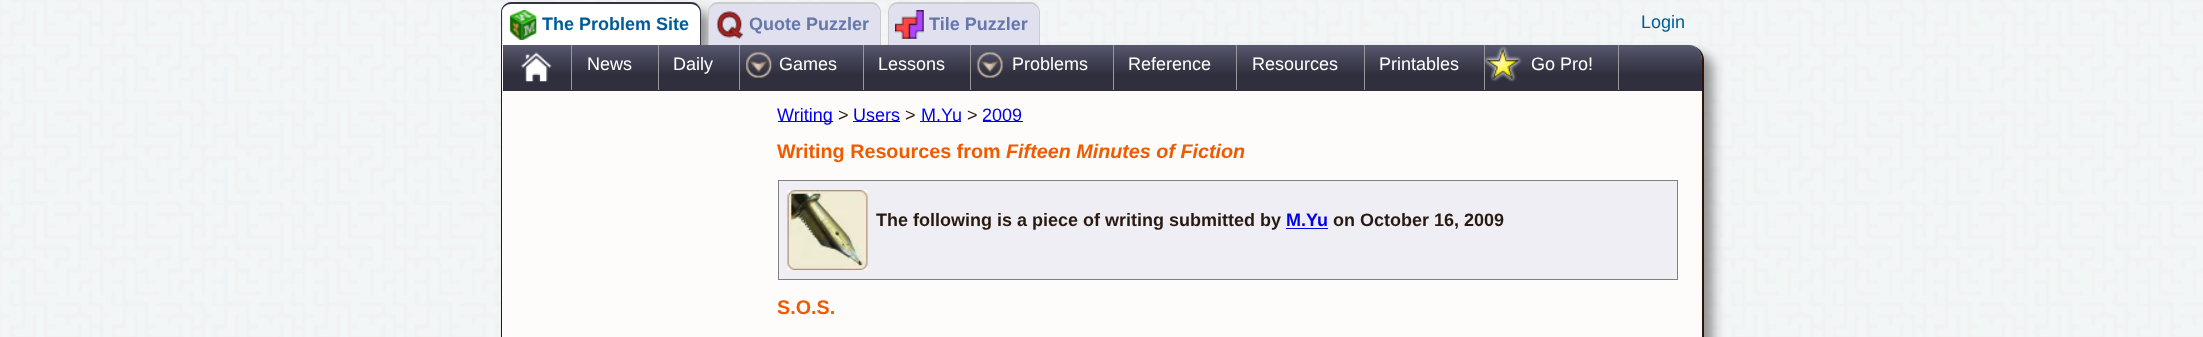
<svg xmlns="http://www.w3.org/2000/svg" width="2203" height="337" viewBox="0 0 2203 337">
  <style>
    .t1 { font: bold 18px Liberation Sans; fill: #005b96; }
    .t2 { font: bold 18px Liberation Sans; fill: #67a; }
    .t3 { font: 18px Liberation Sans; fill: #005b96; }
    .t4 { font: 18px Liberation Sans; fill: #fff; }
    .t5 { font: 18px Liberation Sans; fill: #00e; }
    .t6 { font: 18px Liberation Sans; fill: #291a11; }
    .t7 { font: bold 19.75px Liberation Sans; fill: #ee5b00; }
    .t8 { font: italic bold 19.75px Liberation Sans; fill: #ee5b00; }
    .t9 { font: bold 18px Liberation Sans; fill: #291a11; }
    .t10 { font: bold 18px Liberation Sans; fill: #00e; }
  </style>
  <defs>
    <linearGradient id="g1" gradientUnits="userSpaceOnUse" x1="1103" y1="45" x2="1103" y2="91"><stop offset="0" stop-color="#575770"/><stop offset="0.64" stop-color="#2f2f3d"/></linearGradient>
    <clipPath id="clip1"><rect x="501" y="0" width="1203" height="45"/></clipPath>
  </defs>
  <rect width="100%" height="100%" fill="#fff"/>
  <image x="0" y="0" width="2203" height="337" href="images/1.png"/>
  <rect x="510" y="54" width="1203" height="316" rx="15" fill="#32323280" filter="blur(6px)"/>
  <path d="M502 45H1689C1696 45 1702 52 1702 60V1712C1702 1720 1696 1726 1689 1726H516C509 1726 502 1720 502 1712Z" fill="#fdfcfb"/>
  <path d="M501 45H1689C1697 45 1704 52 1704 60V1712C1704 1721 1697 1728 1689 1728H516C508 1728 501 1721 501 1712ZM502 45H1689C1696 45 1702 52 1702 60V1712C1702 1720 1696 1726 1689 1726H516C509 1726 502 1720 502 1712Z" fill="#2f1505" fill-rule="evenodd"/>
  <path d="M503 45V91H1702V60C1702 52 1696 45 1689 45Z" fill="url(#g1)"/>
  <image x="521" y="52" width="31" height="30" href="images/5.png"/>
  <rect x="571" y="45" width="1" height="45" fill="#999"/>
  <rect x="658" y="45" width="1" height="45" fill="#999"/>
  <g clip-path="url(#clip1)">
    <rect x="510" y="11" width="200" height="43" rx="10" fill="#32323280" filter="blur(6px)"/>
  </g>
  <path d="M512 4H691C696 4 700 8 700 13V45H503V13C503 8 507 4 512 4Z" fill="#fff"/>
  <image x="509" y="10" width="28" height="30" href="images/2.png"/>
  <path d="M511 2H691C697 2 701 7 701 12V45H501V12C501 7 506 2 511 2ZM511 4H691C696 4 700 8 700 12V45H502V12C502 8 506 4 511 4Z" fill="#334" fill-rule="evenodd"/>
  <text x="542" y="30" class="t1">The Problem Site</text>
  <path d="M718 4H871C876 4 880 8 880 13V45H709V13C709 8 713 4 718 4Z" fill="#e0e0ee"/>
  <image x="716" y="11" width="28" height="28" href="images/3.png"/>
  <path d="M718 2H871C877 2 881 7 881 12V45H708V12C708 7 712 2 718 2ZM718 4H871C876 4 880 8 880 12V45H709V12C709 8 713 4 718 4Z" fill="#ccc" fill-rule="evenodd"/>
  <text x="749" y="30" class="t2">Quote Puzzler</text>
  <path d="M898 4H1030C1035 4 1039 8 1039 13V45H889V13C889 8 893 4 898 4Z" fill="#e0e0ee"/>
  <image x="895" y="10" width="29" height="29" href="images/4.png"/>
  <path d="M898 2H1030C1036 2 1040 7 1040 12V45H888V12C888 7 892 2 898 2ZM898 4H1030C1035 4 1039 8 1039 12V45H889V12C889 8 893 4 898 4Z" fill="#ccc" fill-rule="evenodd"/>
  <text x="929" y="30" class="t2">Tile Puzzler</text>
  <text x="1641" y="28" class="t3">Login</text>
  <text x="587" y="70" class="t4">News</text>
  <rect x="739" y="45" width="1" height="45" fill="#999"/>
  <text x="673" y="70" class="t4">Daily</text>
  <image x="746" y="52" width="26" height="26" href="images/6.png"/>
  <rect x="863" y="45" width="1" height="45" fill="#999"/>
  <text x="779" y="70" class="t4">Games</text>
  <rect x="970" y="45" width="1" height="45" fill="#999"/>
  <text x="878" y="70" class="t4">Lessons</text>
  <image x="977" y="52" width="26" height="26" href="images/7.png"/>
  <rect x="1113" y="45" width="1" height="45" fill="#999"/>
  <text x="1012" y="70" class="t4">Problems</text>
  <rect x="1236" y="45" width="1" height="45" fill="#999"/>
  <text x="1128" y="70" class="t4">Reference</text>
  <rect x="1364" y="45" width="1" height="45" fill="#999"/>
  <text x="1252" y="70" class="t4">Resources</text>
  <rect x="1484" y="45" width="1" height="45" fill="#999"/>
  <text x="1379" y="70" class="t4">Printables</text>
  <image x="1485" y="46" width="37" height="36" href="images/8.png"/>
  <rect x="1618" y="45" width="1" height="45" fill="#999"/>
  <text x="1531" y="70" class="t4">Go Pro!</text>
  <rect x="778" y="121" width="55" height="1" fill="#00e"/>
  <text x="777" y="121" class="t5">Writing</text>
  <text x="838" y="121" class="t6">&gt;</text>
  <rect x="853" y="121" width="47" height="1" fill="#00e"/>
  <text x="853" y="121" class="t5">Users</text>
  <text x="905" y="121" class="t6">&gt;</text>
  <rect x="920" y="121" width="41" height="1" fill="#00e"/>
  <text x="921" y="121" class="t5">M.Yu</text>
  <text x="967" y="121" class="t6">&gt;</text>
  <rect x="983" y="121" width="40" height="1" fill="#00e"/>
  <text x="982" y="121" class="t5">2009</text>
  <text x="777" y="158" class="t7">Writing Resources from</text>
  <text x="1006" y="158" class="t8">Fifteen Minutes of Fiction</text>
  <rect x="778.5" y="180.5" width="899" height="99" fill="#eeeef4" stroke="#808080"/>
  <image x="787" y="190" width="81" height="80" href="images/9.png"/>
  <text x="876" y="226" class="t9">The following is a piece of writing submitted by</text>
  <text x="1286" y="226" class="t10">M.Yu</text>
  <rect x="1286" y="228" width="42" height="1" fill="#00e"/>
  <text x="1333" y="226" class="t9">on October 16, 2009</text>
  <text x="777" y="314" class="t7">S.O.S.</text>
</svg>
